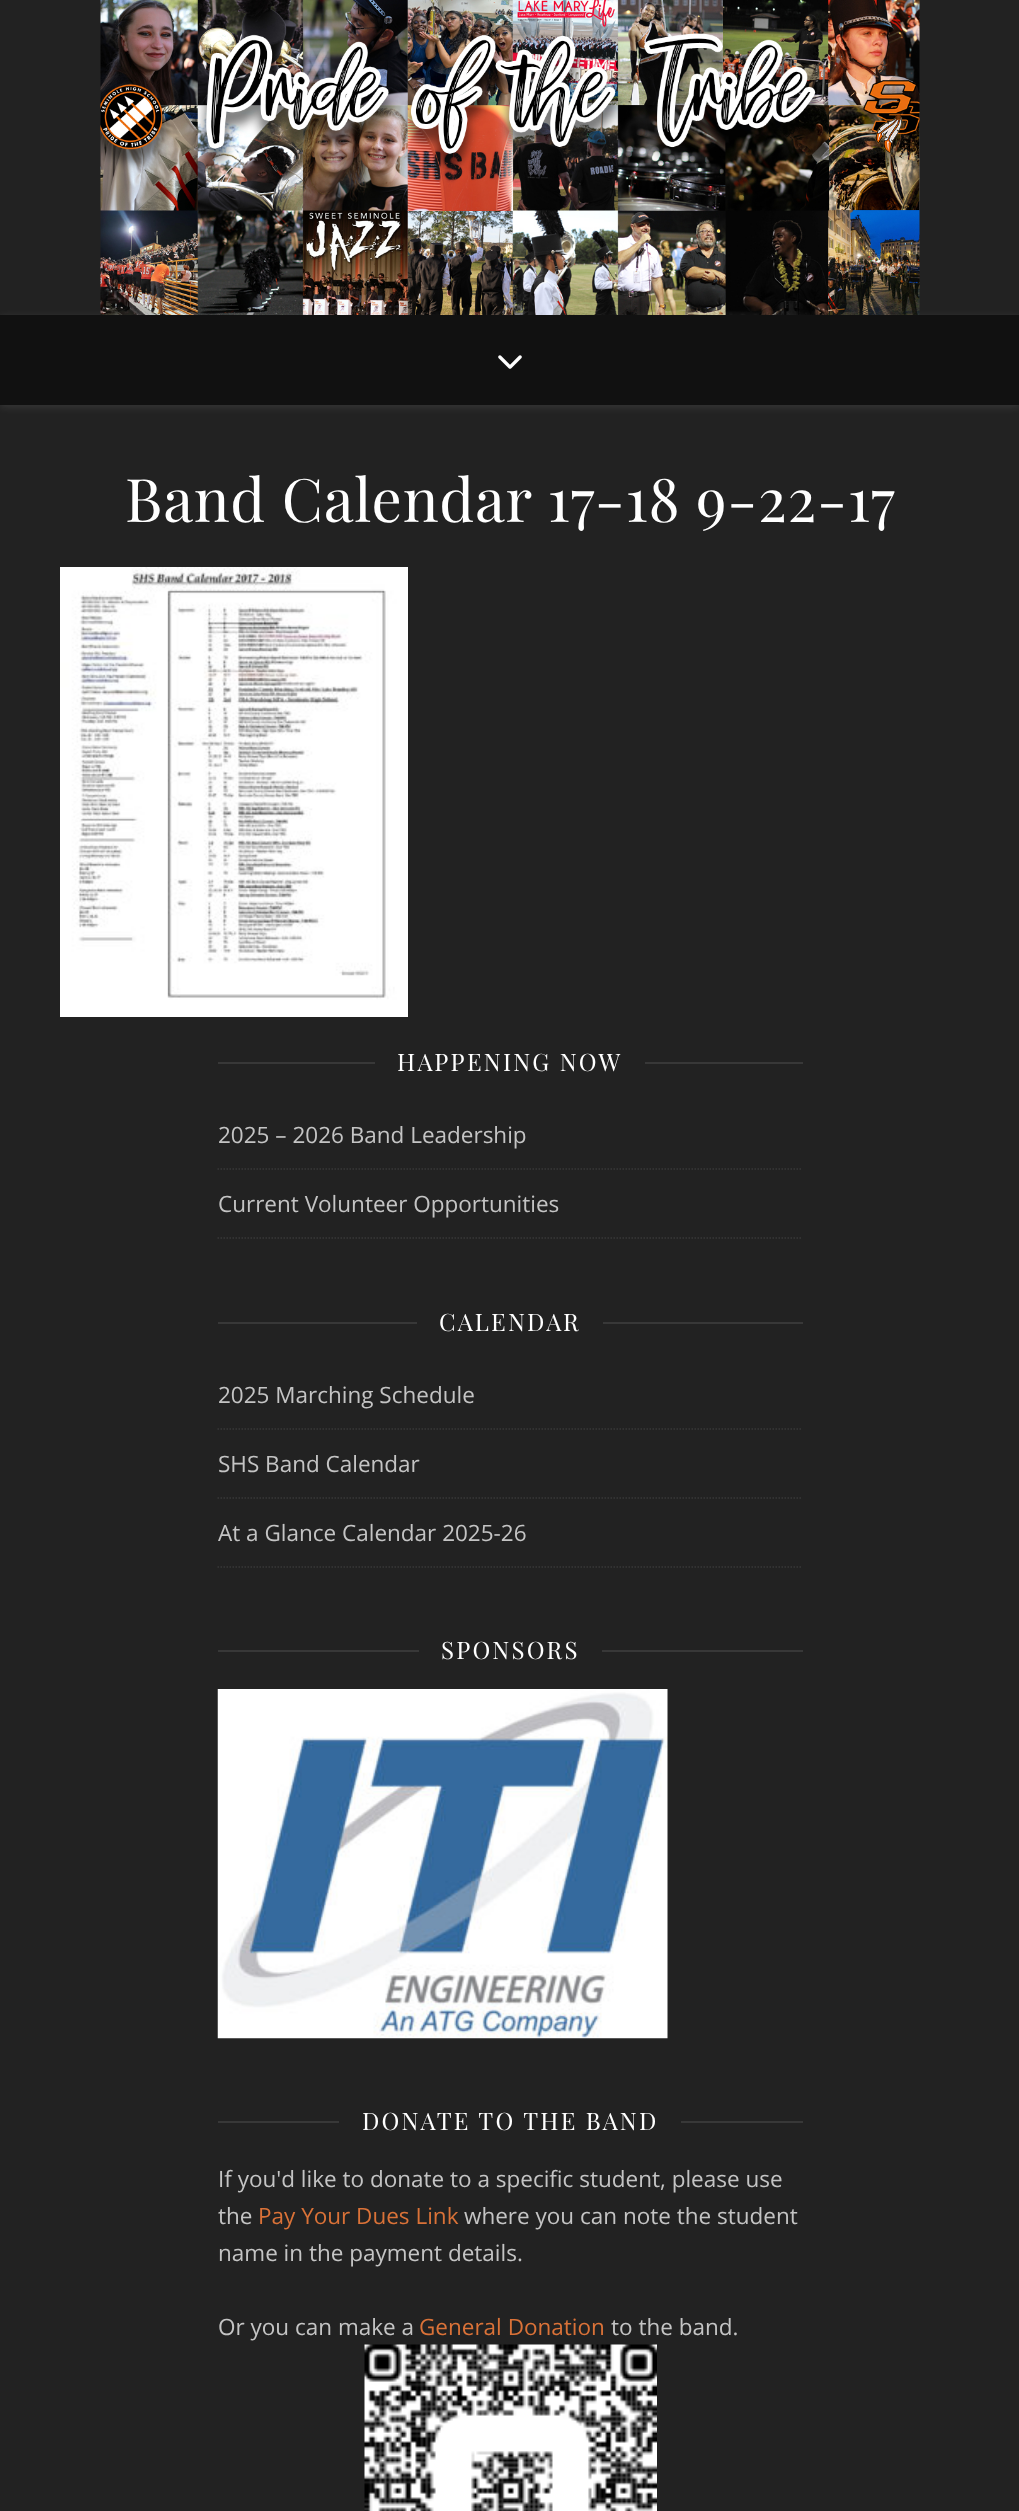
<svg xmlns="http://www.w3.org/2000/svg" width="1019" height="2511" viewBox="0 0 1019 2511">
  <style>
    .t1 { font: 60px Playfair Display; letter-spacing: 0.75px; fill: #fff; }
    .t2 { font: 24px Playfair Display; letter-spacing: 2.25px; fill: #fff; }
    .t3 { font: 22.5px Open Sans; fill: #c4c4c4; }
    .t4 { font: 22.5px Open Sans; fill: #da7238; }
  </style>
  <rect width="100%" height="100%" fill="#222"/>
  <image x="100" y="0" width="820" height="315" href="images/1.png"/>
  <rect x="0" y="317" width="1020" height="90" fill="#ffffff1a" filter="blur(4px)"/>
  <rect x="0" y="315" width="1019" height="90" fill="#111"/>
  <image x="498" y="355" width="24" height="14" href="images/2.png"/>
  <text x="125" y="522" class="t1">Band Calendar 17-18 9-22-17</text>
  <image x="60" y="567" width="348" height="450" href="images/3.png"/>
  <rect x="218" y="1062" width="157" height="2" fill="#383838"/>
  <text x="397" y="1071" class="t2">HAPPENING NOW</text>
  <rect x="645" y="1062" width="158" height="2" fill="#383838"/>
  <path d="M217.5 1169H802.5" fill="none" stroke="#383838" stroke-width="1.5" stroke-dasharray="1.5 1.5"/>
  <text x="218" y="1143" class="t3">2025 – 2026 Band Leadership</text>
  <path d="M217.5 1238H802.5" fill="none" stroke="#383838" stroke-width="1.5" stroke-dasharray="1.5 1.5"/>
  <text x="218" y="1212" class="t3">Current Volunteer Opportunities</text>
  <rect x="218" y="1322" width="199" height="2" fill="#383838"/>
  <text x="439" y="1331" class="t2">CALENDAR</text>
  <rect x="603" y="1322" width="200" height="2" fill="#383838"/>
  <path d="M217.5 1429H802.5" fill="none" stroke="#383838" stroke-width="1.5" stroke-dasharray="1.5 1.5"/>
  <text x="218" y="1403" class="t3">2025 Marching Schedule</text>
  <path d="M217.5 1498H802.5" fill="none" stroke="#383838" stroke-width="1.5" stroke-dasharray="1.5 1.5"/>
  <text x="218" y="1472" class="t3">SHS Band Calendar</text>
  <path d="M217.5 1567H802.5" fill="none" stroke="#383838" stroke-width="1.5" stroke-dasharray="1.5 1.5"/>
  <text x="218" y="1541" class="t3">At a Glance Calendar 2025-26</text>
  <rect x="218" y="1650" width="201" height="2" fill="#383838"/>
  <text x="441" y="1659" class="t2">SPONSORS</text>
  <rect x="602" y="1650" width="201" height="2" fill="#383838"/>
  <image x="217" y="1689" width="451" height="350" href="images/4.png"/>
  <rect x="218" y="2121" width="121" height="2" fill="#383838"/>
  <text x="362" y="2130" class="t2">DONATE TO THE BAND</text>
  <rect x="681" y="2121" width="122" height="2" fill="#383838"/>
  <text x="218" y="2187" class="t3">If you'd like to donate to a specific student, please use</text>
  <text x="218" y="2224" class="t3">the</text>
  <text x="258" y="2224" class="t4">Pay Your Dues Link</text>
  <text x="464" y="2224" class="t3">where you can note the student</text>
  <text x="218" y="2261" class="t3">name in the payment details.</text>
  <text x="218" y="2335" class="t3">Or you can make a</text>
  <text x="419" y="2335" class="t4">General Donation</text>
  <text x="611" y="2335" class="t3">to the band.</text>
  <image x="364" y="2344" width="293" height="167" href="images/5.png"/>
</svg>
